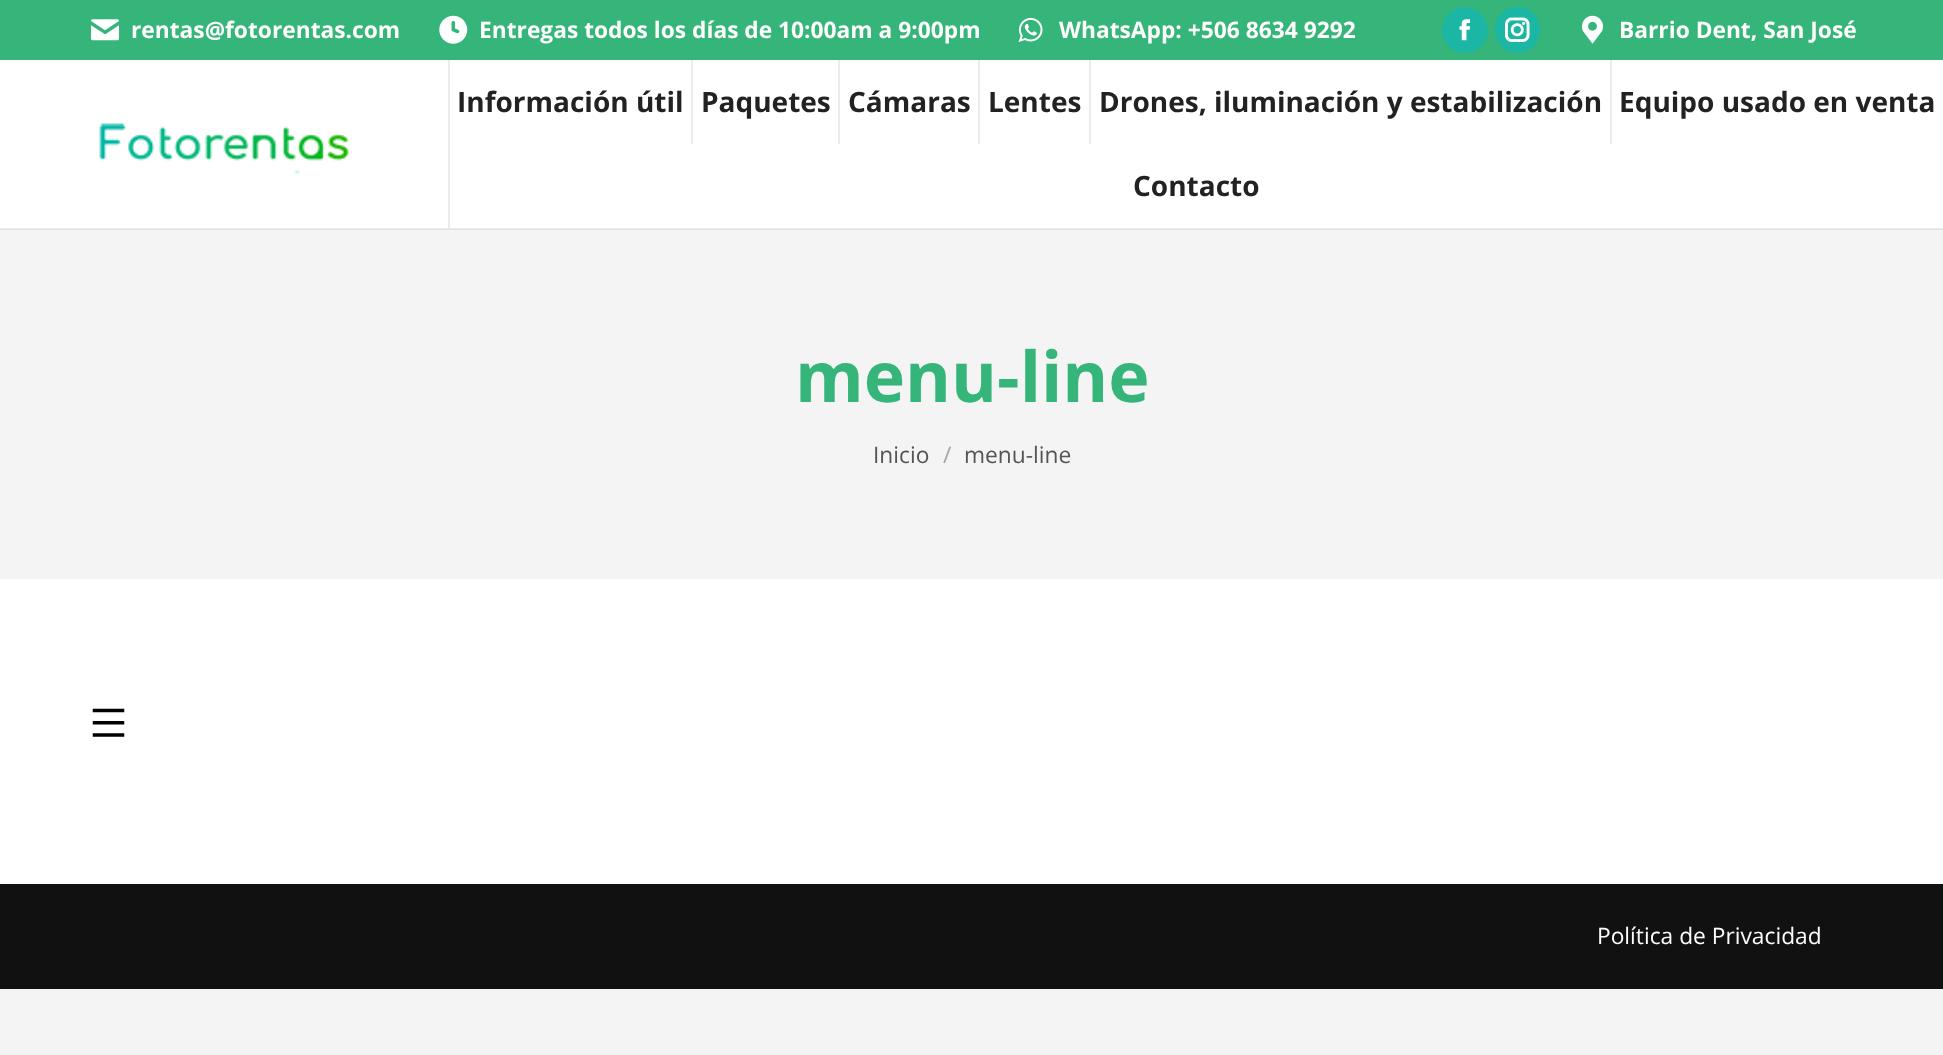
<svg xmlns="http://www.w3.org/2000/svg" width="1943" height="1055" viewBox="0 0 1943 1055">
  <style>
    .t1 { font: bold 22.75px Open Sans; fill: #fcfcfb; }
    .t2 { font: bold 28px Open Sans; fill: #222; }
    .t3 { font: bold 70px Open Sans; fill: #35b57a; }
    .t4 { font: 22.75px Open Sans; fill: #555; }
    .t5 { font: 22.75px Open Sans; fill: #a5a5a5; }
    .t6 { font: 22.75px Open Sans; fill: #fcfcfb; }
  </style>
  <rect width="100%" height="100%" fill="#f4f4f4"/>
  <rect x="0" y="60" width="1943" height="824" fill="#fff"/>
  <rect x="0" y="228" width="1943" height="1" fill="#ebebeb"/>
  <rect x="0" y="0" width="1943" height="60" fill="#35b57a"/>
  <image x="91" y="19" width="28" height="22" href="images/1.png"/>
  <text x="131" y="38" class="t1">rentas@fotorentas.com</text>
  <image x="439" y="15" width="29" height="29" href="images/2.png"/>
  <text x="479" y="38" class="t1">Entregas todos los días de 10:00am a 9:00pm</text>
  <image x="1018" y="17" width="25" height="25" href="images/3.png"/>
  <text x="1059" y="38" class="t1">WhatsApp: +506 8634 9292</text>
  <circle cx="1465" cy="30" r="23" fill="#1bb6a4"/>
  <image x="1459" y="19" width="12" height="22" href="images/4.png"/>
  <rect x="1495" y="7" width="45" height="46" rx="22.5" fill="#1bb6a4"/>
  <image x="1505" y="17" width="25" height="25" href="images/5.png"/>
  <image x="1582" y="15" width="21" height="29" href="images/6.png"/>
  <text x="1619" y="38" class="t1">Barrio Dent, San José</text>
  <image x="99" y="123" width="250" height="51" href="images/7.png"/>
  <rect x="448" y="60" width="2" height="168" fill="#ebebeb"/>
  <text x="457" y="112" class="t2">Información útil</text>
  <rect x="691" y="60" width="2" height="84" fill="#ebebeb"/>
  <text x="701" y="112" class="t2">Paquetes</text>
  <rect x="838" y="60" width="2" height="84" fill="#ebebeb"/>
  <text x="848" y="112" class="t2">Cámaras</text>
  <rect x="978" y="60" width="2" height="84" fill="#ebebeb"/>
  <text x="988" y="112" class="t2">Lentes</text>
  <rect x="1089" y="60" width="2" height="84" fill="#ebebeb"/>
  <text x="1099" y="112" class="t2">Drones, iluminación y estabilización</text>
  <rect x="1610" y="60" width="2" height="84" fill="#ebebeb"/>
  <text x="1619" y="112" class="t2">Equipo usado en venta</text>
  <text x="1133" y="196" class="t2">Contacto</text>
  <rect x="0" y="230" width="1943" height="349" fill="#f4f4f4"/>
  <rect x="0" y="229" width="1943" height="1" fill="#e2e2e2"/>
  <text x="795" y="402" class="t3">menu-line</text>
  <text x="873" y="463" class="t4">Inicio</text>
  <text x="943" y="463" class="t5">/</text>
  <text x="964" y="463" class="t4">menu-line</text>
  <image x="92" y="708" width="33" height="29" href="images/8.png"/>
  <rect x="0" y="884" width="1943" height="105" fill="#111"/>
  <text x="1597" y="944" class="t6">Política de Privacidad</text>
</svg>
